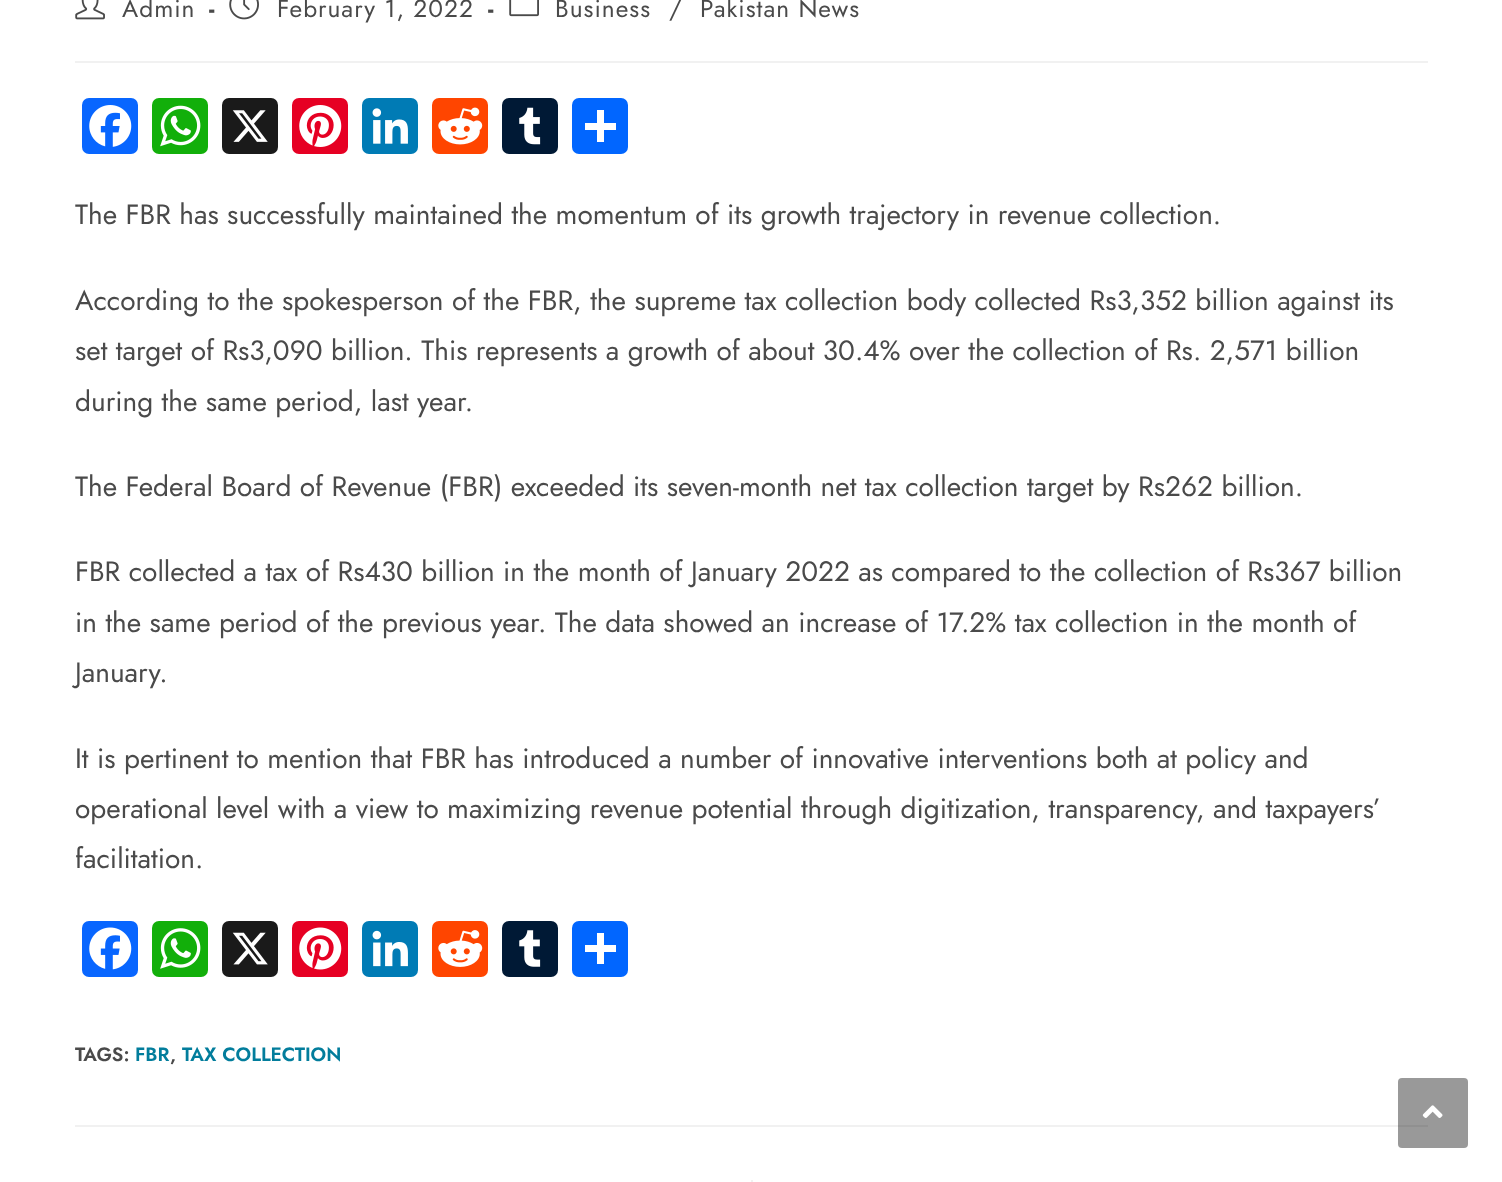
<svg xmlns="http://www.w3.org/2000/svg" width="1502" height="1182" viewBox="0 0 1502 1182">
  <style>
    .t1 { font: 24.5px Jost; letter-spacing: 1px; fill: #4a4a4a; }
    .t2 { font: bold 24.5px Jost; letter-spacing: 1px; fill: #4a4a4a; }
    .t3 { font: 28px Jost; fill: #4a4a4a; }
    .t4 { font: 600 19.25px Jost; fill: #4a4a4a; }
    .t5 { font: 600 19.25px Jost; fill: #027d9c; }
  </style>
  <rect width="100%" height="100%" fill="#fff"/>
  <rect x="75" y="61" width="1353" height="2" fill="#f1f1f1"/>
  <image x="75" y="0" width="30" height="20" href="images/1.png"/>
  <text x="122" y="17" class="t1">Admin</text>
  <text x="209" y="17" class="t2">-</text>
  <image x="229" y="0" width="30" height="20" href="images/2.png"/>
  <text x="277" y="17" class="t1">February 1, 2022</text>
  <text x="488" y="17" class="t2">-</text>
  <image x="509" y="0" width="30" height="17" href="images/3.png"/>
  <text x="555" y="17" class="t1">Business</text>
  <text x="669" y="17" class="t1">/</text>
  <text x="700" y="17" class="t1">Pakistan News</text>
  <rect x="82" y="98" width="56" height="56" rx="7" fill="#0866ff"/>
  <image x="89" y="105" width="43" height="42" href="images/4.png"/>
  <rect x="152" y="98" width="56" height="56" rx="7" fill="#12af0a"/>
  <image x="160" y="105" width="41" height="42" href="images/5.png"/>
  <rect x="222" y="98" width="56" height="56" rx="7" fill="#1a1a1a"/>
  <image x="232" y="110" width="36" height="32" href="images/6.png"/>
  <rect x="292" y="98" width="56" height="56" rx="7" fill="#e60023"/>
  <image x="299" y="105" width="43" height="42" href="images/7.png"/>
  <rect x="362" y="98" width="56" height="56" rx="7" fill="#007bb5"/>
  <image x="372" y="108" width="36" height="36" href="images/8.png"/>
  <rect x="432" y="98" width="56" height="56" rx="7" fill="#ff4500"/>
  <image x="438" y="107" width="45" height="38" href="images/9.png"/>
  <rect x="502" y="98" width="56" height="56" rx="7" fill="#001935"/>
  <image x="519" y="107" width="22" height="38" href="images/10.png"/>
  <rect x="572" y="98" width="56" height="56" rx="7" fill="#0166ff"/>
  <rect x="597" y="110" width="7" height="32" fill="#fff"/>
  <rect x="585" y="123" width="31" height="7" fill="#fff"/>
  <text x="75" y="224" class="t3">The FBR has successfully maintained the momentum of its growth trajectory in revenue collection.</text>
  <text x="75" y="310" class="t3">According to the spokesperson of the FBR, the supreme tax collection body collected Rs3,352 billion against its</text>
  <text x="75" y="360" class="t3">set target of Rs3,090 billion. This represents a growth of about 30.4% over the collection of Rs. 2,571 billion</text>
  <text x="75" y="411" class="t3">during the same period, last year.</text>
  <text x="75" y="496" class="t3">The Federal Board of Revenue (FBR) exceeded its seven-month net tax collection target by Rs262 billion.</text>
  <text x="75" y="581" class="t3">FBR collected a tax of Rs430 billion in the month of January 2022 as compared to the collection of Rs367 billion</text>
  <text x="75" y="632" class="t3">in the same period of the previous year. The data showed an increase of 17.2% tax collection in the month of</text>
  <text x="75" y="682" class="t3">January.</text>
  <text x="75" y="768" class="t3">It is pertinent to mention that FBR has introduced a number of innovative interventions both at policy and</text>
  <text x="75" y="818" class="t3">operational level with a view to maximizing revenue potential through digitization, transparency, and taxpayers’</text>
  <text x="75" y="868" class="t3">facilitation.</text>
  <rect x="82" y="921" width="56" height="56" rx="7" fill="#0866ff"/>
  <image x="89" y="927" width="43" height="43" href="images/11.png"/>
  <rect x="152" y="921" width="56" height="56" rx="7" fill="#12af0a"/>
  <image x="160" y="928" width="41" height="41" href="images/12.png"/>
  <rect x="222" y="921" width="56" height="56" rx="7" fill="#1a1a1a"/>
  <image x="232" y="932" width="36" height="33" href="images/13.png"/>
  <rect x="292" y="921" width="56" height="56" rx="7" fill="#e60023"/>
  <image x="299" y="927" width="43" height="43" href="images/14.png"/>
  <rect x="362" y="921" width="56" height="56" rx="7" fill="#007bb5"/>
  <image x="372" y="930" width="36" height="37" href="images/15.png"/>
  <rect x="432" y="921" width="56" height="56" rx="7" fill="#ff4500"/>
  <image x="438" y="930" width="45" height="37" href="images/16.png"/>
  <rect x="502" y="921" width="56" height="56" rx="7" fill="#001935"/>
  <image x="519" y="930" width="22" height="37" href="images/17.png"/>
  <rect x="572" y="921" width="56" height="56" rx="7" fill="#0166ff"/>
  <rect x="597" y="933" width="7" height="31" fill="#fff"/>
  <rect x="585" y="945" width="31" height="7" fill="#fff"/>
  <text x="75" y="1061" class="t4">TAGS:</text>
  <text x="135" y="1061" class="t5">FBR</text>
  <text x="170" y="1061" class="t4">,</text>
  <text x="182" y="1061" class="t5">TAX COLLECTION</text>
  <rect x="75" y="1125" width="1353" height="2" fill="#f1f1f1"/>
  <rect x="751" y="1180" width="2" height="2" fill="#f1f1f1"/>
  <rect x="1398" y="1078" width="70" height="70" rx="4" fill="#00000066"/>
  <image x="1422" y="1105" width="21" height="13" href="images/18.png"/>
</svg>
